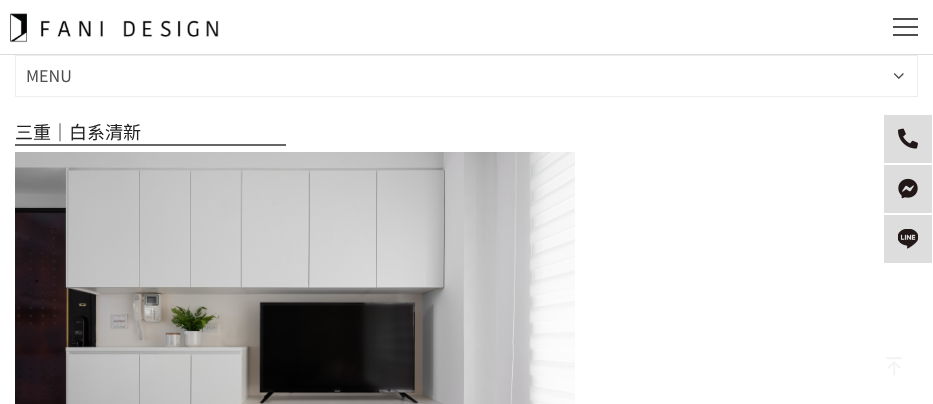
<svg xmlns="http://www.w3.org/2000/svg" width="933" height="404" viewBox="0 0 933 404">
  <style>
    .t1 { font: 18px Source Sans Pro; fill: #4d4d4d; }
    .t2 { font: 18px Noto Sans CJK TC; fill: #222; }
  </style>
  <rect width="100%" height="100%" fill="#fff"/>
  <rect x="0" y="54" width="933" height="1" fill="#ddd"/>
  <image x="9" y="13" width="210" height="30" href="images/1.png"/>
  <rect x="893" y="18" width="25" height="2" fill="#4d4d4d"/>
  <rect x="893" y="26" width="25" height="2" fill="#4d4d4d"/>
  <rect x="893" y="34" width="25" height="2" fill="#4d4d4d"/>
  <rect x="15.5" y="55.5" width="902" height="41" fill="none" stroke="#eee"/>
  <text x="26" y="82" class="t1">MENU</text>
  <image x="893" y="73" width="11" height="6" href="images/2.png"/>
  <text x="15" y="139" class="t2">三重｜白系清新</text>
  <rect x="15" y="144" width="271" height="2" fill="#666"/>
  <image x="15" y="152" width="560" height="252" href="images/3.png"/>
  <rect x="884" y="115" width="48" height="48" fill="#ddd"/>
  <image x="898" y="128" width="20" height="21" href="images/4.png"/>
  <rect x="884" y="165" width="48" height="48" fill="#ddd"/>
  <image x="898" y="178" width="20" height="21" href="images/5.png"/>
  <rect x="884" y="215" width="48" height="48" fill="#ddd"/>
  <image x="898" y="229" width="20" height="20" href="images/6.png"/>
  <image x="886" y="357" width="16" height="19" href="images/7.png"/>
</svg>
